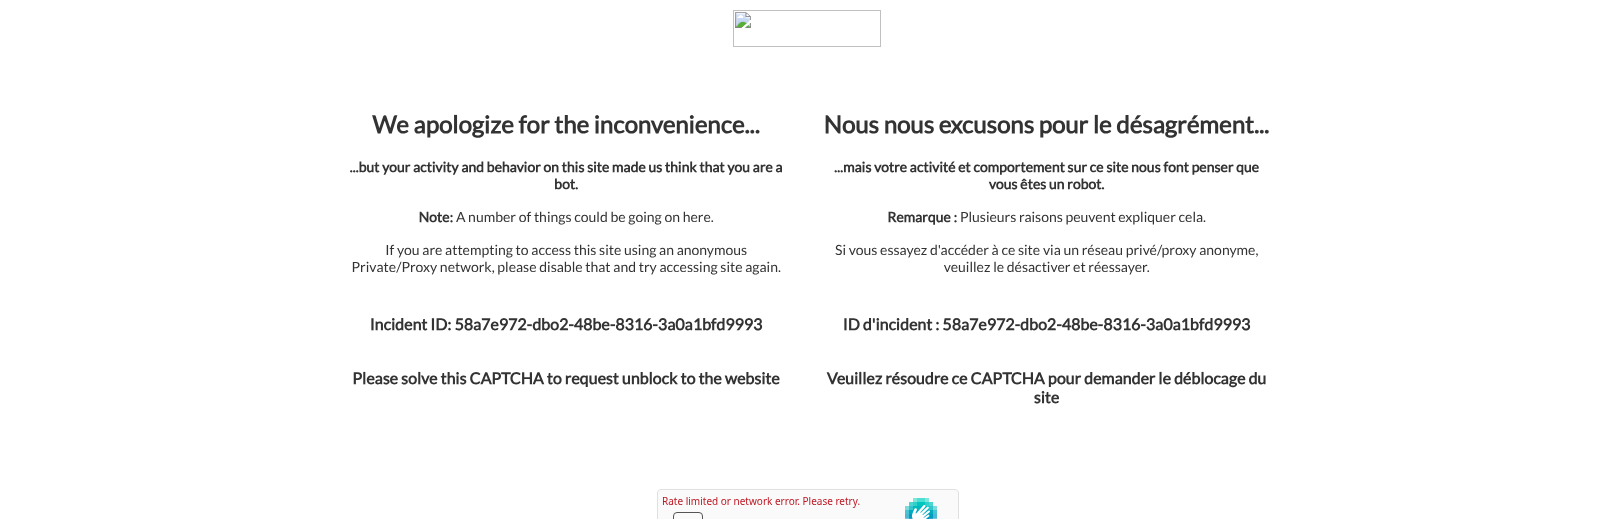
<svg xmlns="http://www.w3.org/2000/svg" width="1613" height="519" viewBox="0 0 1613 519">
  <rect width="100%" height="100%" fill="#fff"/>
  <image x="350" y="10" width="919" height="509" href="images/1.png"/>
</svg>
